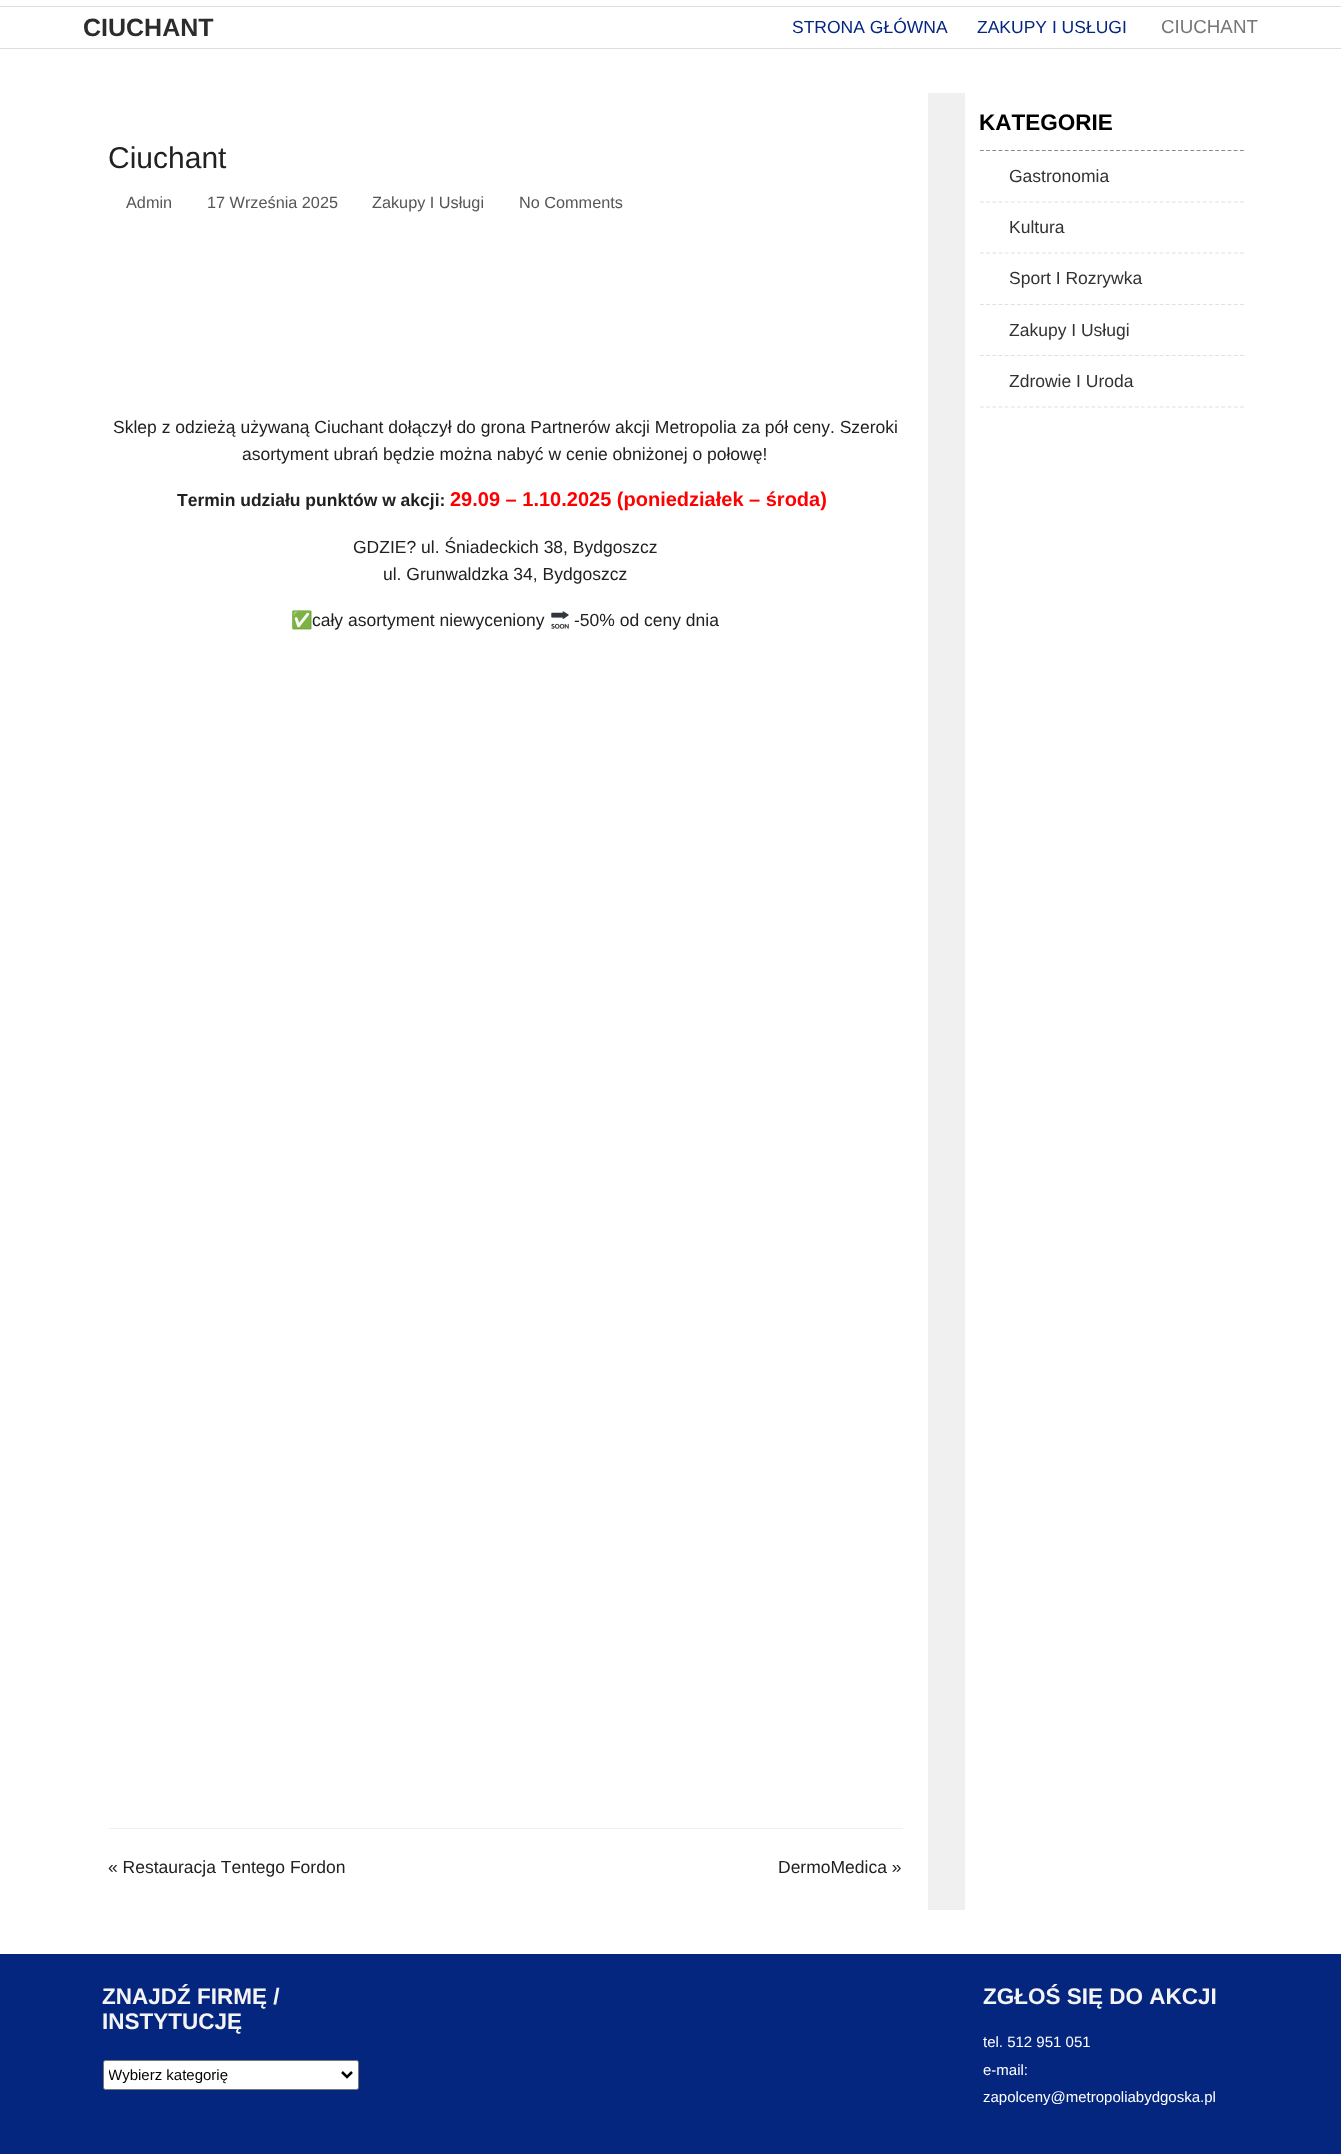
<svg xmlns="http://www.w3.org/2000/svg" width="1341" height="2154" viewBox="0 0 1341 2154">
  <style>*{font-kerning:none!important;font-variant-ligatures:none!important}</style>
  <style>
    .t1 { font: bold 25px Liberation Sans; fill: #2c2c2c; }
    .t2 { font: 17.5px Liberation Sans; fill: #04267f; }
    .t3 { font: 18.75px Liberation Sans; fill: #767676; }
    .t4 { font: 30px Liberation Sans; fill: #212121; }
    .t5 { font: 16.25px Liberation Sans; fill: #565656; }
    .t6 { font: 17.5px Liberation Sans; fill: #212121; }
    .t7 { font: bold 17.5px Liberation Sans; fill: #212121; }
    .t8 { font: bold 20px Liberation Sans; fill: #f00; }
    .t9 { font: 17.5px Noto Color Emoji; fill: #212121; }
    .t10 { font: bold 22.5px Liberation Sans; fill: #000; }
    .t11 { font: 17.5px Liberation Sans; fill: #323232; }
    .t12 { font: bold 22.5px Liberation Sans; fill: #f4f4f4; }
    .t13 { font: 15px Liberation Sans; fill: #000; }
    .t14 { font: 15px Liberation Sans; fill: #fff; }
  </style>
  <defs>
    <clipPath id="clip1"><rect x="109" y="2065" width="229" height="20"/></clipPath>
  </defs>
  <rect width="100%" height="100%" fill="#fff"/>
  <rect x="0" y="6" width="1341" height="1" fill="#ddd"/>
  <rect x="0" y="48" width="1341" height="1" fill="#ddd"/>
  <text x="83" y="36" class="t1">CIUCHANT</text>
  <text x="792" y="33" class="t2">STRONA GŁÓWNA</text>
  <text x="977" y="33" class="t2">ZAKUPY I USŁUGI</text>
  <text x="1161" y="33" class="t3">CIUCHANT</text>
  <rect x="928" y="93" width="37" height="1817" fill="#f0f0f0"/>
  <rect x="109" y="1828" width="794" height="1" fill="#f0f0f0"/>
  <text x="108" y="168" class="t4">Ciuchant</text>
  <text x="126" y="208" class="t5">Admin</text>
  <text x="207" y="208" class="t5">17 Września 2025</text>
  <text x="372" y="208" class="t5">Zakupy I Usługi</text>
  <text x="519" y="208" class="t5">No Comments</text>
  <text x="113" y="433" class="t6">Sklep z odzieżą używaną Ciuchant dołączył do grona Partnerów akcji Metropolia za pół ceny. Szeroki</text>
  <text x="242" y="460" class="t6">asortyment ubrań będzie można nabyć w cenie obniżonej o połowę!</text>
  <text x="177" y="506" class="t7">Termin udziału punktów w akcji:</text>
  <text x="450" y="506" class="t8">29.09 – 1.10.2025 (poniedziałek – środa)</text>
  <text x="353" y="553" class="t6">GDZIE? ul. Śniadeckich 38, Bydgoszcz</text>
  <text x="383" y="580" class="t6">ul. Grunwaldzka 34, Bydgoszcz</text>
  <text x="291" y="626" class="t9">✅</text>
  <text x="312" y="626" class="t6">cały asortyment niewyceniony</text>
  <image x="551" y="611" width="18" height="18" href="images/1.png"/>
  <text x="574" y="626" class="t6">-50% od ceny dnia</text>
  <text x="108" y="1873" class="t6">« Restauracja Tentego Fordon</text>
  <text x="778" y="1873" class="t6">DermoMedica »</text>
  <path d="M980 150.5H1244" fill="none" stroke="#888" stroke-width="1.2" stroke-dasharray="3.75 2.44"/>
  <text x="979" y="130" class="t10">KATEGORIE</text>
  <path d="M980 202H1244" fill="none" stroke="#e0e0e0" stroke-width="1.2" stroke-dasharray="3.75 2.44"/>
  <text x="1009" y="182" class="t11">Gastronomia</text>
  <path d="M980 253H1244" fill="none" stroke="#e0e0e0" stroke-width="1.2" stroke-dasharray="3.75 2.44"/>
  <text x="1009" y="233" class="t11">Kultura</text>
  <path d="M980 304.5H1244" fill="none" stroke="#e0e0e0" stroke-width="1.2" stroke-dasharray="3.75 2.44"/>
  <text x="1009" y="284" class="t11">Sport I Rozrywka</text>
  <path d="M980 355.5H1244" fill="none" stroke="#e0e0e0" stroke-width="1.2" stroke-dasharray="3.75 2.44"/>
  <text x="1009" y="336" class="t11">Zakupy I Usługi</text>
  <path d="M980 407H1244" fill="none" stroke="#e0e0e0" stroke-width="1.2" stroke-dasharray="3.75 2.44"/>
  <text x="1009" y="387" class="t11">Zdrowie I Uroda</text>
  <rect x="0" y="1954" width="1341" height="200" fill="#04267f"/>
  <text x="102" y="2004" class="t12">ZNAJDŹ FIRMĘ /</text>
  <text x="102" y="2029" class="t12">INSTYTUCJĘ</text>
  <rect x="103.5" y="2060.5" width="255" height="29" rx="2" fill="#fff" stroke="#767676"/>
  <path d="M342 2072L347 2077L352 2072" fill="none" stroke="#000" stroke-width="2.5"/>
  <g clip-path="url(#clip1)">
    <text x="108" y="2080" class="t13">Wybierz kategorię</text>
  </g>
  <text x="983" y="2004" class="t12">ZGŁOŚ SIĘ DO AKCJI</text>
  <text x="983" y="2047" class="t14">tel. 512 951 051</text>
  <text x="983" y="2075" class="t14">e-mail:</text>
  <text x="983" y="2102" class="t14">zapolceny@metropoliabydgoska.pl</text>
</svg>
